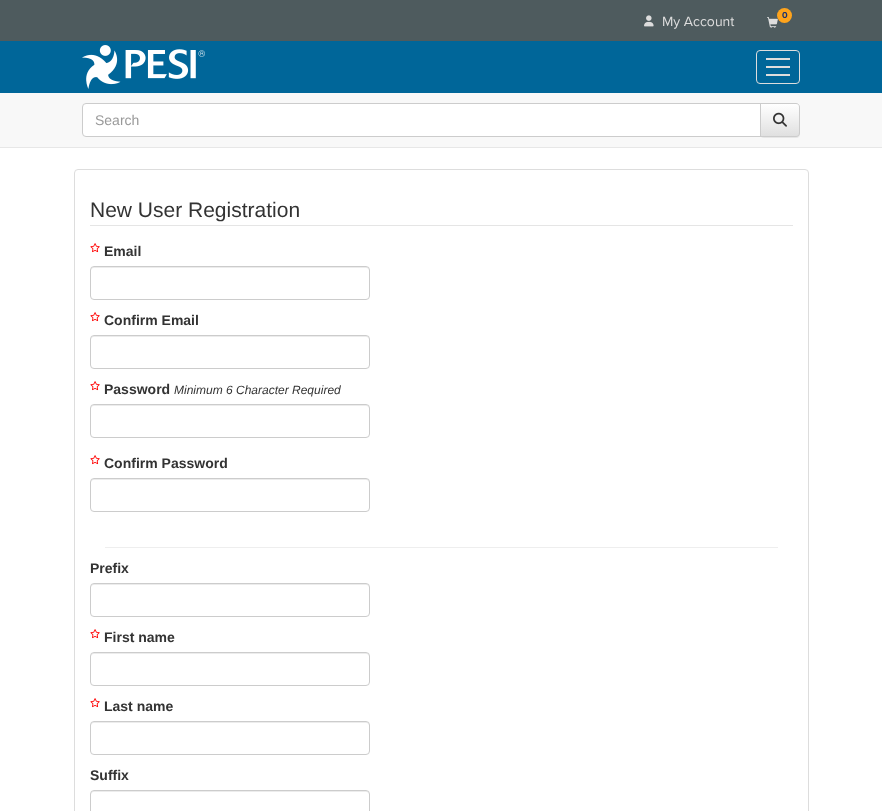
<svg xmlns="http://www.w3.org/2000/svg" width="882" height="811" viewBox="0 0 882 811">
  <style>
    .t1 { font: bold 9px Proxima Nova; fill: #1b3270; }
    .t2 { font: 14px Proxima Nova; fill: #ddd; }
    .t3 { font: 14px Liberation Sans; fill: #999; }
    .t4 { font: 21px Liberation Sans; fill: #333; }
    .t5 { font: bold 14px Liberation Sans; fill: #333; }
    .t6 { font: italic 12px Liberation Sans; fill: #333; }
  </style>
  <defs>
    <clipPath id="clip1"><path d="M760 103H796C798 103 800 105 800 107V133C800 135 798 137 796 137H760Z"/></clipPath>
    <linearGradient id="g1" gradientUnits="userSpaceOnUse" x1="780" y1="104" x2="780" y2="136"><stop offset="0" stop-color="#fff"/><stop offset="1" stop-color="#e0e0e0"/></linearGradient>
  </defs>
  <rect width="100%" height="100%" fill="#fff"/>
  <rect x="0" y="0" width="882" height="41" fill="#4e5b5e"/>
  <image x="767" y="17" width="11" height="11" href="images/1.png"/>
  <circle cx="784.5" cy="15.5" r="7.5" fill="#ffa41c"/>
  <text x="782" y="18" class="t1">0</text>
  <image x="644" y="15" width="10" height="12" href="images/2.png"/>
  <text x="662" y="26" class="t2">My Account</text>
  <rect x="0" y="41" width="882" height="52" fill="#069"/>
  <image x="82" y="45" width="123" height="44" href="images/3.png"/>
  <rect x="756.5" y="50.5" width="43" height="33" rx="3.5" fill="none" stroke="#ddd"/>
  <rect x="766" y="58" width="24" height="2" fill="#ddd"/>
  <rect x="766" y="66" width="24" height="2" fill="#ddd"/>
  <rect x="766" y="74" width="24" height="2" fill="#ddd"/>
  <rect x="0" y="93" width="882" height="54" fill="#f8f8f8"/>
  <rect x="0" y="147" width="882" height="1" fill="#e7e7e7"/>
  <rect x="82.5" y="103.5" width="707" height="33" rx="3.5" fill="#fff" stroke="#ccc"/>
  <text x="95" y="125" class="t3">Search</text>
  <rect x="760" y="104" width="40" height="34" rx="4" fill="#00000012" filter="blur(0.5px)"/>
  <g clip-path="url(#clip1)">
    <rect x="761" y="104" width="39" height="32" fill="url(#g1)"/>
  </g>
  <path d="M760.5 103.5H796C798 103.5 799.5 105 799.5 107V133C799.5 135 798 136.5 796 136.5H760.5Z" fill="none" stroke="#ccc"/>
  <image x="773" y="112" width="14" height="15" href="images/4.png"/>
  <rect x="74.5" y="169.5" width="734" height="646" rx="3.5" fill="none" stroke="#ddd"/>
  <rect x="90" y="225" width="703" height="1" fill="#e5e5e5"/>
  <text x="90" y="217" class="t4">New User Registration</text>
  <image x="90" y="243" width="10" height="10" href="images/5.png"/>
  <text x="104" y="256" class="t5">Email</text>
  <path d="M94 268H366C368 268 369 269 369 271V270C369 268 368 267 366 267H94C92 267 91 268 91 270V271C91 269 92 268 94 268Z" fill="#ececec"/>
  <rect x="90.5" y="266.5" width="279" height="33" rx="3.5" fill="none" stroke="#ccc"/>
  <image x="90" y="312" width="10" height="10" href="images/5.png"/>
  <text x="104" y="325" class="t5">Confirm Email</text>
  <path d="M94 337H366C368 337 369 338 369 340V339C369 337 368 336 366 336H94C92 336 91 337 91 339V340C91 338 92 337 94 337Z" fill="#ececec"/>
  <rect x="90.5" y="335.5" width="279" height="33" rx="3.5" fill="none" stroke="#ccc"/>
  <image x="90" y="381" width="10" height="10" href="images/5.png"/>
  <text x="104" y="394" class="t5">Password</text>
  <text x="174" y="394" class="t6">Minimum 6 Character Required</text>
  <path d="M94 406H366C368 406 369 407 369 409V408C369 406 368 405 366 405H94C92 405 91 406 91 408V409C91 407 92 406 94 406Z" fill="#ececec"/>
  <rect x="90.5" y="404.5" width="279" height="33" rx="3.5" fill="none" stroke="#ccc"/>
  <image x="90" y="455" width="10" height="10" href="images/5.png"/>
  <text x="104" y="468" class="t5">Confirm Password</text>
  <path d="M94 480H366C368 480 369 481 369 483V482C369 480 368 479 366 479H94C92 479 91 480 91 482V483C91 481 92 480 94 480Z" fill="#ececec"/>
  <rect x="90.5" y="478.5" width="279" height="33" rx="3.5" fill="none" stroke="#ccc"/>
  <rect x="105" y="547" width="673" height="1" fill="#eee"/>
  <text x="90" y="573" class="t5">Prefix</text>
  <path d="M94 585H366C368 585 369 586 369 588V587C369 585 368 584 366 584H94C92 584 91 585 91 587V588C91 586 92 585 94 585Z" fill="#ececec"/>
  <rect x="90.5" y="583.5" width="279" height="33" rx="3.5" fill="none" stroke="#ccc"/>
  <image x="90" y="629" width="10" height="10" href="images/5.png"/>
  <text x="104" y="642" class="t5">First name</text>
  <path d="M94 654H366C368 654 369 655 369 657V656C369 654 368 653 366 653H94C92 653 91 654 91 656V657C91 655 92 654 94 654Z" fill="#ececec"/>
  <rect x="90.5" y="652.5" width="279" height="33" rx="3.5" fill="none" stroke="#ccc"/>
  <image x="90" y="698" width="10" height="10" href="images/5.png"/>
  <text x="104" y="711" class="t5">Last name</text>
  <path d="M94 723H366C368 723 369 724 369 726V725C369 723 368 722 366 722H94C92 722 91 723 91 725V726C91 724 92 723 94 723Z" fill="#ececec"/>
  <rect x="90.5" y="721.5" width="279" height="33" rx="3.5" fill="none" stroke="#ccc"/>
  <text x="90" y="780" class="t5">Suffix</text>
  <path d="M94 792H366C368 792 369 793 369 795V794C369 792 368 791 366 791H94C92 791 91 792 91 794V795C91 793 92 792 94 792Z" fill="#ececec"/>
  <rect x="90.5" y="790.5" width="279" height="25" rx="3.5" fill="none" stroke="#ccc"/>
</svg>
